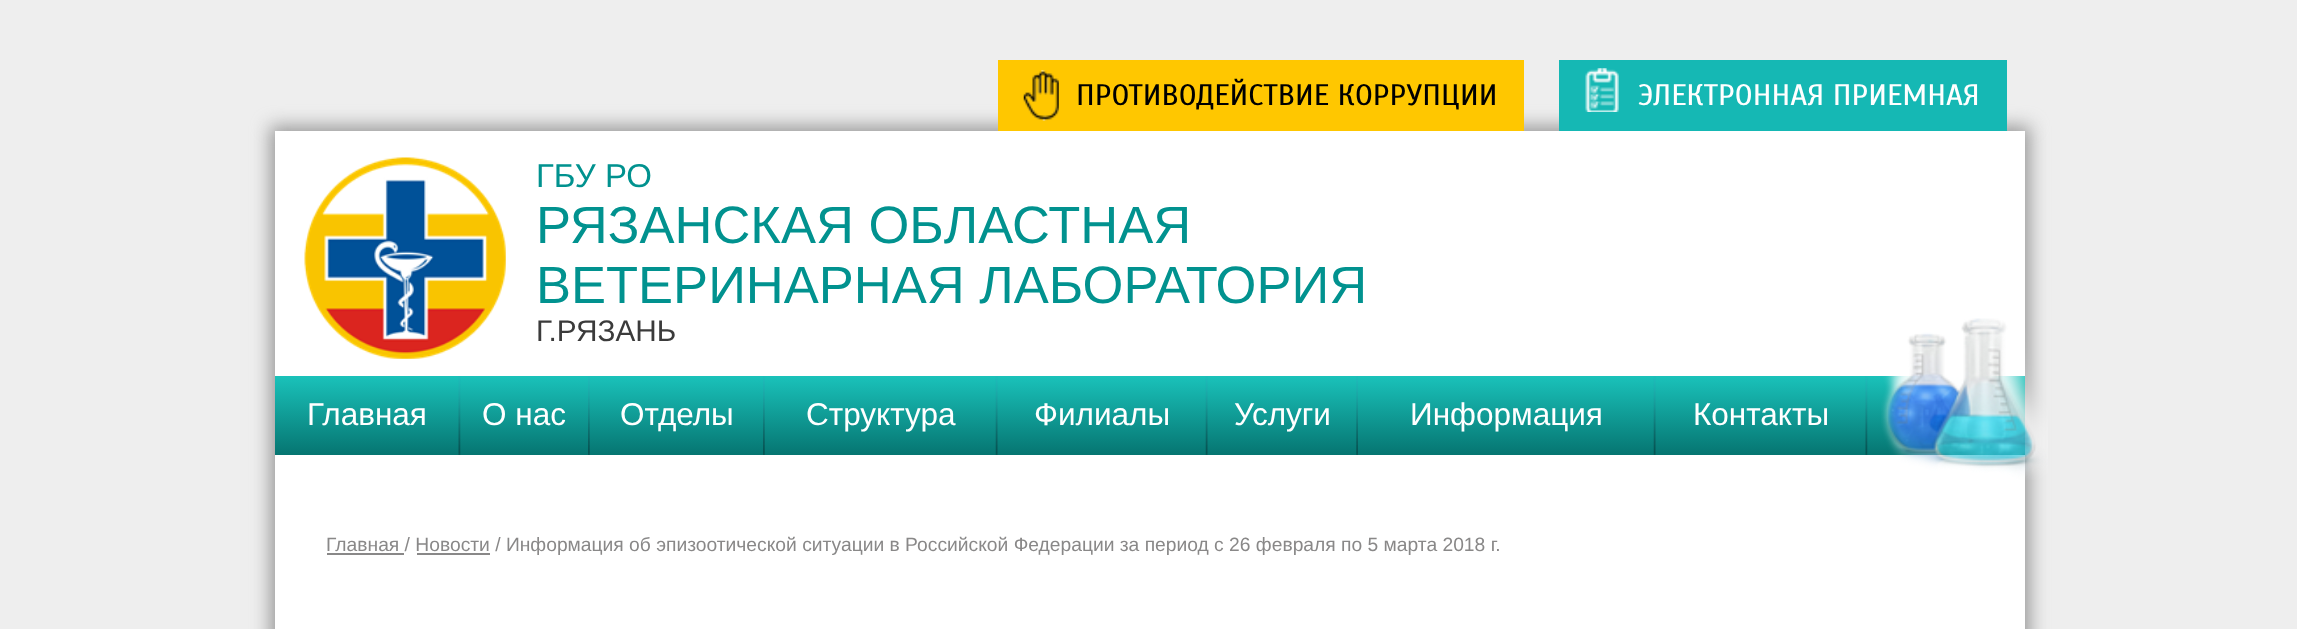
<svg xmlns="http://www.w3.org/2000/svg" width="2297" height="629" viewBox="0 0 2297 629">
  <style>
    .t1 { font: 29.75px Scada; fill: #000; }
    .t2 { font: 29.75px Scada; fill: #fff; }
    .t3 { font: 33px Liberation Sans; fill: #01928f; }
    .t4 { font: 52.5px Liberation Sans; fill: #01928f; }
    .t5 { font: 29.75px Liberation Sans; fill: #3b3b3b; }
    .t6 { font: 31.5px Liberation Sans; fill: #fff; }
    .t7 { font: 19.25px Liberation Sans; fill: #898888; }
  </style>
  <defs>
    <linearGradient id="g1" gradientUnits="userSpaceOnUse" x1="1150" y1="376" x2="1150" y2="455"><stop offset="0" stop-color="#1ac2ba"/><stop offset="1" stop-color="#067571"/></linearGradient>
  </defs>
  <rect width="100%" height="100%" fill="#eee"/>
  <rect x="270" y="126" width="1760" height="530" fill="#999" filter="blur(9px)"/>
  <rect x="275" y="131" width="1750" height="498" fill="#fff"/>
  <rect x="998" y="60" width="526" height="71" fill="#ffc700"/>
  <image x="1023" y="70" width="36" height="51" href="images/1.png"/>
  <text x="1076" y="105" class="t1">ПРОТИВОДЕЙСТВИЕ КОРРУПЦИИ</text>
  <rect x="1559" y="60" width="448" height="71" fill="#15b8b4"/>
  <image x="1585" y="68" width="34" height="44" href="images/2.png"/>
  <text x="1638" y="105" class="t2">ЭЛЕКТРОННАЯ ПРИЕМНАЯ</text>
  <image x="304" y="157" width="202" height="202" href="images/3.png"/>
  <text x="536" y="187" class="t3">ГБУ РО</text>
  <text x="536" y="243" class="t4">РЯЗАНСКАЯ ОБЛАСТНАЯ</text>
  <text x="536" y="303" class="t4">ВЕТЕРИНАРНАЯ ЛАБОРАТОРИЯ</text>
  <text x="536" y="341" class="t5">Г.РЯЗАНЬ</text>
  <rect x="275" y="376" width="1750" height="79" fill="url(#g1)"/>
  <image x="458" y="376" width="3" height="79" href="images/4.png"/>
  <text x="307" y="425" class="t6">Главная</text>
  <image x="588" y="376" width="2" height="79" href="images/5.png"/>
  <text x="482" y="425" class="t6">О нас</text>
  <image x="763" y="376" width="2" height="79" href="images/5.png"/>
  <text x="620" y="425" class="t6">Отделы</text>
  <image x="995" y="376" width="3" height="79" href="images/6.png"/>
  <text x="806" y="425" class="t6">Структура</text>
  <image x="1205" y="376" width="3" height="79" href="images/6.png"/>
  <text x="1034" y="425" class="t6">Филиалы</text>
  <image x="1356" y="376" width="2" height="79" href="images/7.png"/>
  <text x="1234" y="425" class="t6">Услуги</text>
  <image x="1653" y="376" width="3" height="79" href="images/6.png"/>
  <text x="1410" y="425" class="t6">Информация</text>
  <image x="1865" y="376" width="3" height="79" href="images/4.png"/>
  <text x="1693" y="425" class="t6">Контакты</text>
  <image x="1881" y="318" width="167" height="162" href="images/8.png"/>
  <rect x="327" y="553" width="77" height="2" fill="#898888"/>
  <text x="326" y="551" class="t7">Главная / Новости / Информация об эпизоотической ситуации в Российской Федерации за период с 26 февраля по 5 марта 2018 г.</text>
  <rect x="417" y="553" width="73" height="2" fill="#898888"/>
</svg>
